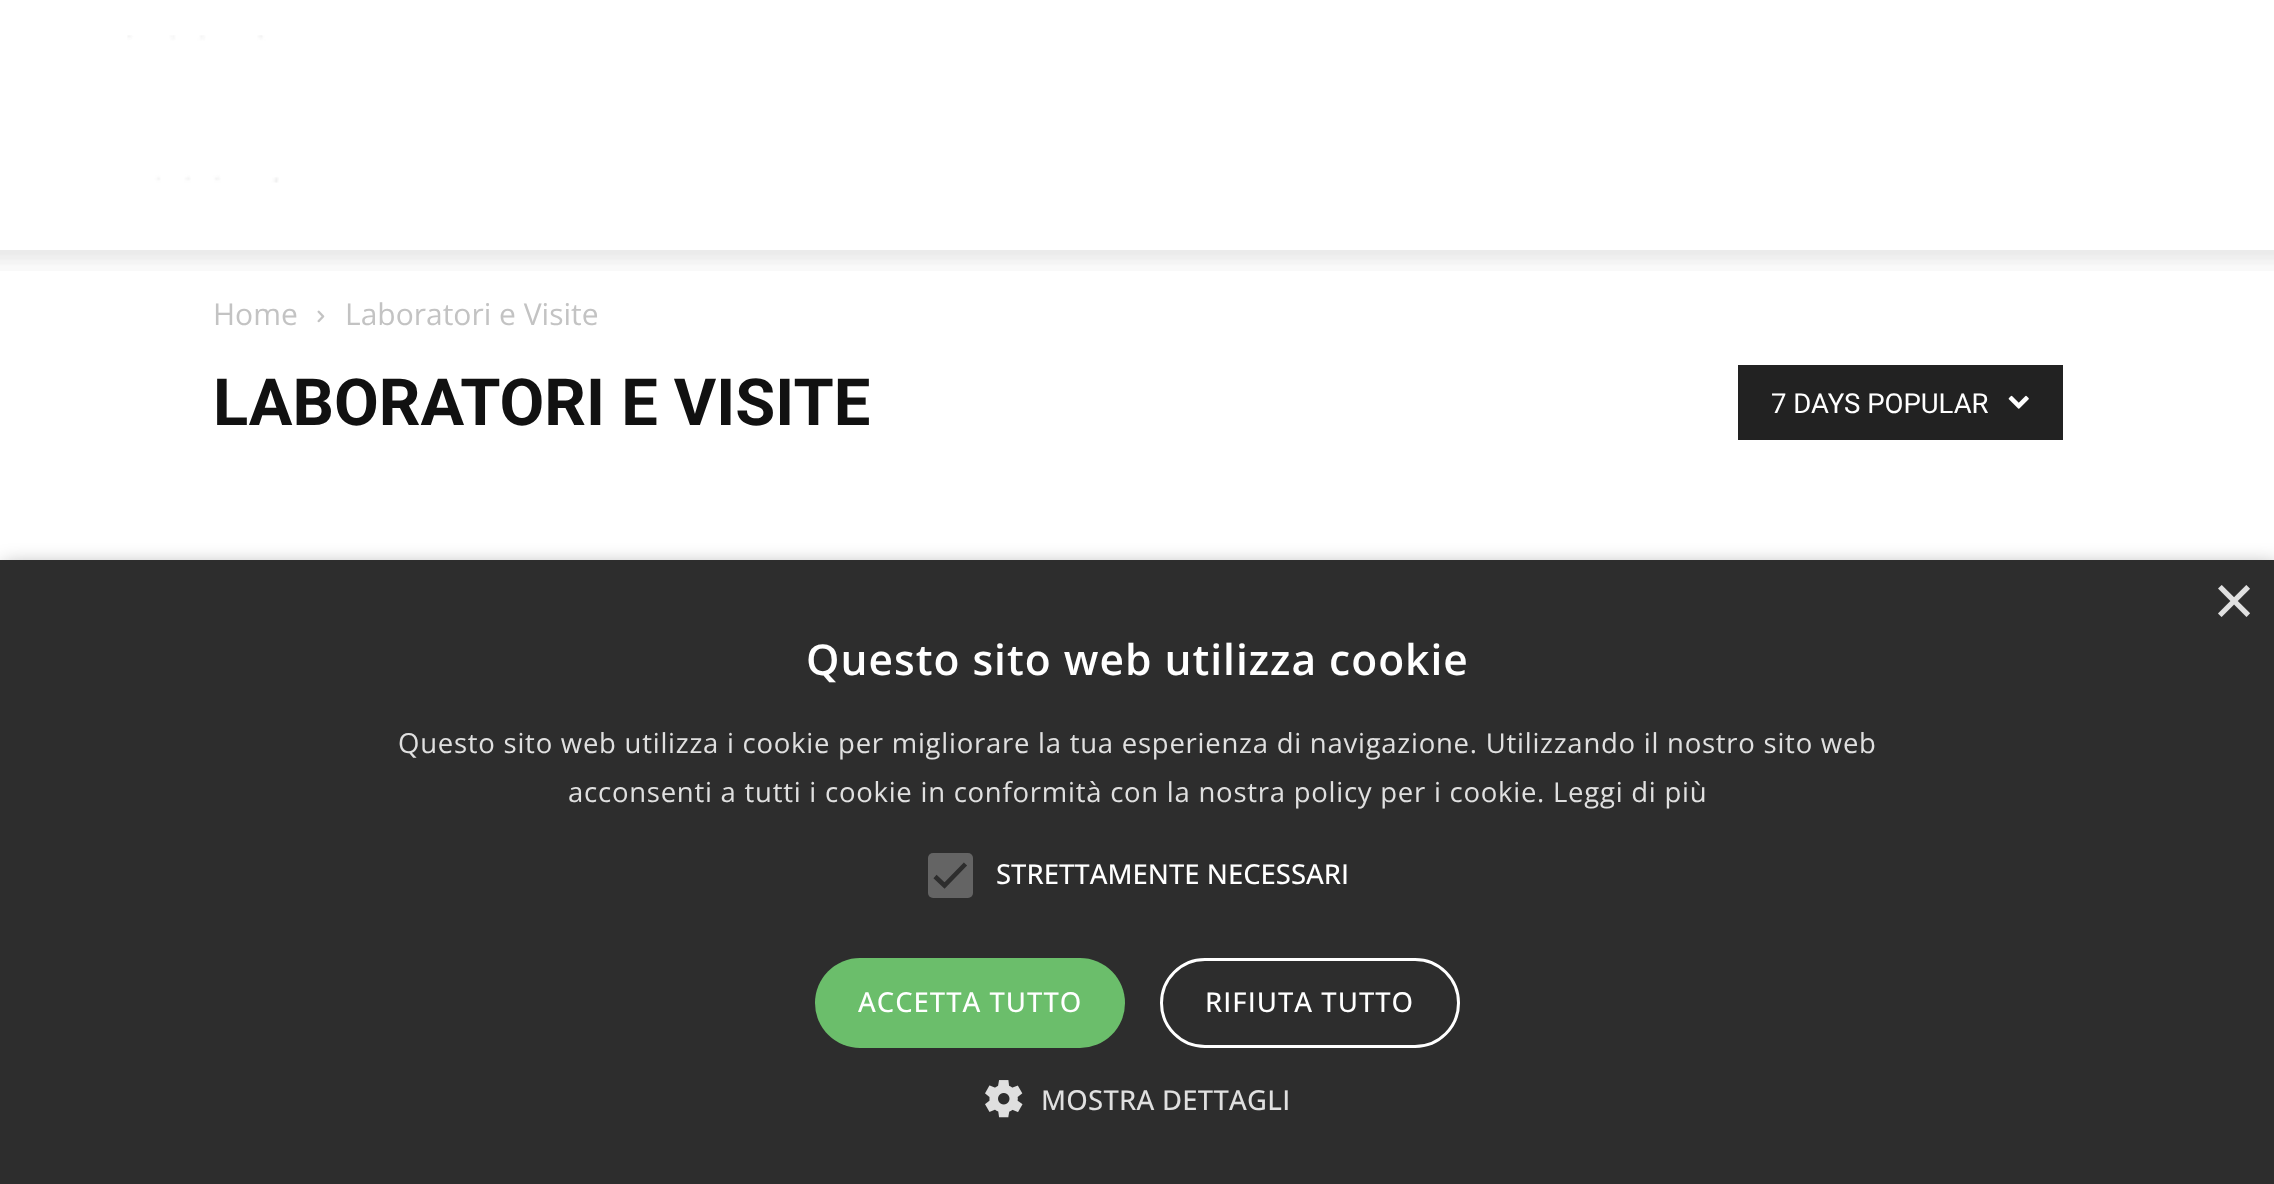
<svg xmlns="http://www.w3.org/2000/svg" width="2274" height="1184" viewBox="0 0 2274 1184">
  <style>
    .t1 { font: 30px Open Sans; fill: #c3c3c3; }
    .t2 { font: bold 65px Roboto; fill: #111; }
    .t3 { font: 27.5px Roboto; fill: #fff; }
    .t4 { font: 72px Liberation Sans; fill: #e0e0e0; }
    .t5 { font: 600 42.5px Open Sans; letter-spacing: 1px; fill: #fff; }
    .t6 { font: 27.5px Open Sans; letter-spacing: 0.75px; fill: #e0e0e0; }
    .t7 { font: 500 27.5px Open Sans; fill: #fff; }
    .t8 { font: 500 27.5px Open Sans; letter-spacing: 1px; fill: #fff; }
    .t9 { font: 500 27.5px Open Sans; letter-spacing: 0.25px; fill: #e0e0e0; }
  </style>
  <rect width="100%" height="100%" fill="#fff"/>
  <image x="127" y="35" width="152" height="148" href="images/1.png"/>
  <image x="0" y="250" width="2274" height="21" href="images/2.png"/>
  <text x="213" y="325" class="t1">Home</text>
  <image x="317" y="310" width="8" height="13" href="images/3.png"/>
  <text x="345" y="325" class="t1">Laboratori e Visite</text>
  <text x="213" y="425" class="t2">LABORATORI E VISITE</text>
  <rect x="1738" y="365" width="325" height="75" fill="#222"/>
  <text x="1771" y="413" class="t3">7 DAYS POPULAR</text>
  <image x="2008" y="395" width="21" height="14" href="images/4.png"/>
  <rect x="3" y="565" width="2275" height="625" fill="#00000059" filter="blur(10px)"/>
  <rect x="0" y="560" width="2274" height="624" fill="#2d2d2d"/>
  <text x="2213" y="625" class="t4">×</text>
  <text x="806" y="675" class="t5">Questo sito web utilizza cookie</text>
  <text x="398" y="753" class="t6">Questo sito web utilizza i cookie per migliorare la tua esperienza di navigazione. Utilizzando il nostro sito web</text>
  <text x="568" y="802" class="t6">acconsenti a tutti i cookie in conformità con la nostra policy per i cookie. Leggi di più</text>
  <rect x="928" y="853" width="45" height="45" rx="5" fill="#646464"/>
  <path d="M935 876.5L944.5 885.5L965.5 864" fill="none" stroke="#2d2d2d" stroke-width="4.6"/>
  <text x="996" y="884" class="t7">STRETTAMENTE NECESSARI</text>
  <rect x="815" y="958" width="310" height="90" rx="45" fill="#6bbe6b"/>
  <text x="858" y="1012" class="t8">ACCETTA TUTTO</text>
  <rect x="1161.5" y="959.5" width="297" height="87" rx="43.5" fill="none" stroke="#fff" stroke-width="3"/>
  <text x="1205" y="1012" class="t8">RIFIUTA TUTTO</text>
  <image x="985" y="1080" width="38" height="38" href="images/5.png"/>
  <text x="1041" y="1110" class="t9">MOSTRA DETTAGLI</text>
</svg>
